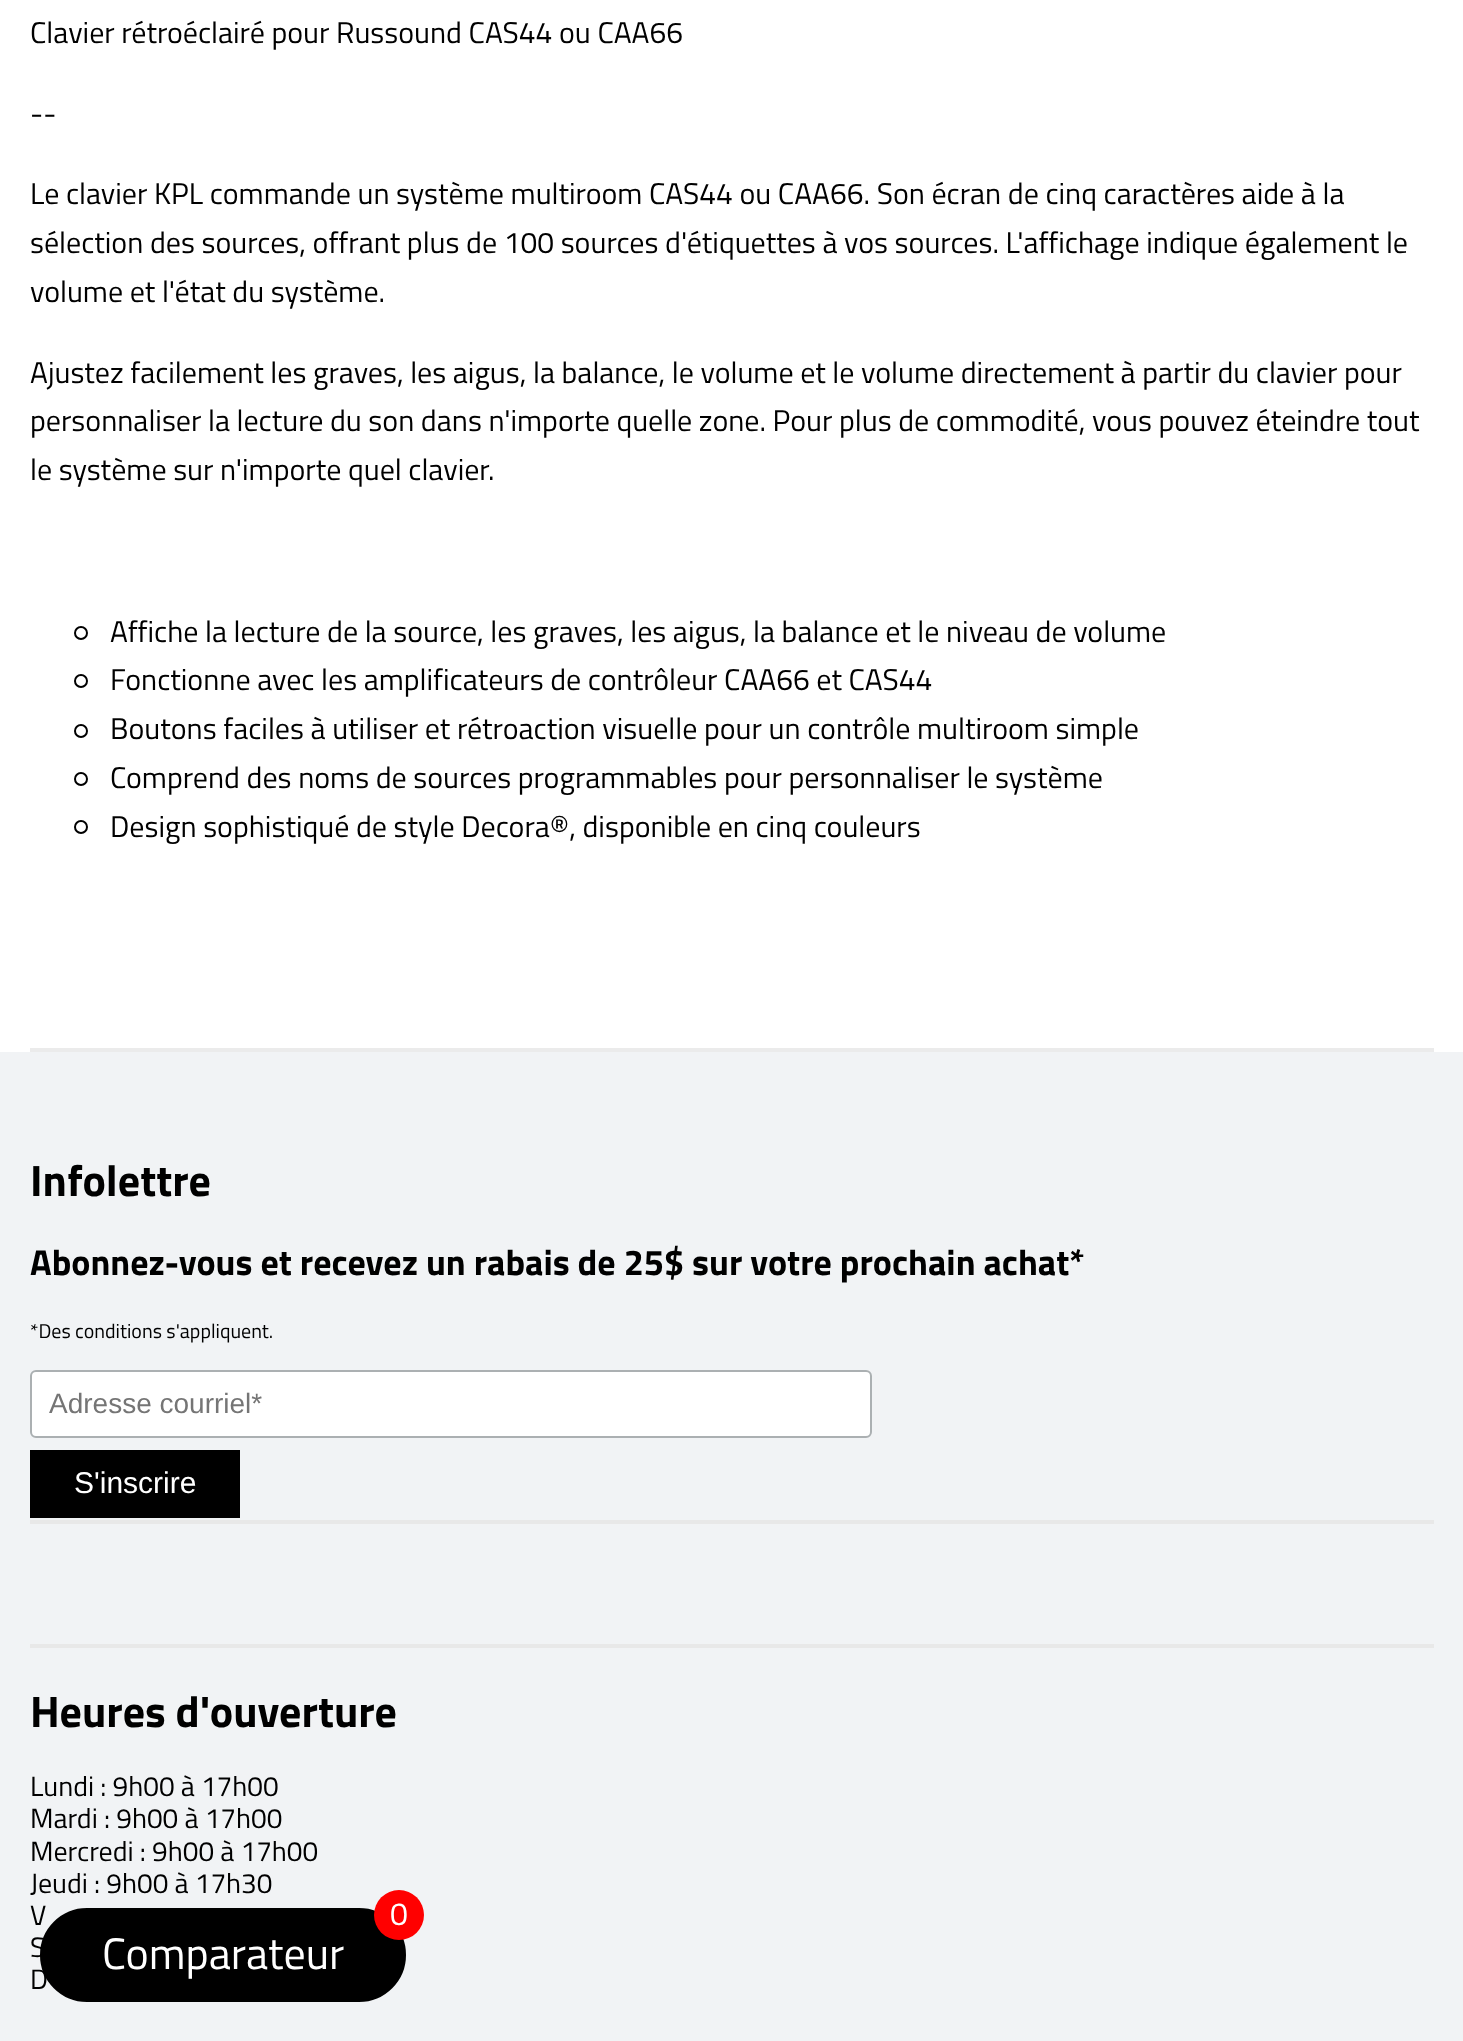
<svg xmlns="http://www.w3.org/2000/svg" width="1463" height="2041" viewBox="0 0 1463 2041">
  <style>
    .t1 { font: 30px Titillium Web; fill: #000; }
    .t2 { font: 32px Titillium Web; fill: #fff; }
    .t3 { font: 44px Titillium Web; fill: #fff; }
    .t4 { font: bold 44px Titillium Web; fill: #000; }
    .t5 { font: bold 36px Titillium Web; fill: #000; }
    .t6 { font: 20px Titillium Web; fill: #000; }
    .t7 { font: 28px Liberation Sans; fill: #757575; }
    .t8 { font: 30px Liberation Sans; fill: #fff; }
    .t9 { font: 28px Titillium Web; fill: #000; }
  </style>
  <rect width="100%" height="100%" fill="#fff"/>
  <text x="30" y="43" class="t1">Clavier rétroéclairé pour Russound CAS44 ou CAA66</text>
  <text x="30" y="124" class="t1">--</text>
  <text x="30" y="204" class="t1">Le clavier KPL commande un système multiroom CAS44 ou CAA66. Son écran de cinq caractères aide à la</text>
  <text x="30" y="253" class="t1">sélection des sources, offrant plus de 100 sources d'étiquettes à vos sources. L'affichage indique également le</text>
  <text x="30" y="302" class="t1">volume et l'état du système.</text>
  <text x="30" y="383" class="t1">Ajustez facilement les graves, les aigus, la balance, le volume et le volume directement à partir du clavier pour</text>
  <text x="30" y="431" class="t1">personnaliser la lecture du son dans n'importe quelle zone. Pour plus de commodité, vous pouvez éteindre tout</text>
  <text x="30" y="480" class="t1">le système sur n'importe quel clavier.</text>
  <circle cx="81" cy="633" r="6" fill="none" stroke="#000" stroke-width="2"/>
  <text x="110" y="642" class="t1">Affiche la lecture de la source, les graves, les aigus, la balance et le niveau de volume</text>
  <circle cx="81" cy="681" r="6" fill="none" stroke="#000" stroke-width="2"/>
  <text x="110" y="690" class="t1">Fonctionne avec les amplificateurs de contrôleur CAA66 et CAS44</text>
  <circle cx="81" cy="731" r="6" fill="none" stroke="#000" stroke-width="2"/>
  <text x="110" y="739" class="t1">Boutons faciles à utiliser et rétroaction visuelle pour un contrôle multiroom simple</text>
  <circle cx="81" cy="779" r="6" fill="none" stroke="#000" stroke-width="2"/>
  <text x="110" y="788" class="t1">Comprend des noms de sources programmables pour personnaliser le système</text>
  <circle cx="81" cy="827" r="6" fill="none" stroke="#000" stroke-width="2"/>
  <text x="110" y="837" class="t1">Design sophistiqué de style Decora®, disponible en cinq couleurs</text>
  <rect x="0" y="1052" width="1463" height="989" fill="#f1f3f5"/>
  <rect x="41" y="1909" width="364" height="92" rx="46" fill="#000" stroke="#000" stroke-width="2"/>
  <circle cx="399" cy="1915" r="25" fill="#f00"/>
  <text x="390" y="1925" class="t2">0</text>
  <text x="102" y="1969" class="t3">Comparateur</text>
  <rect x="30" y="1048" width="1404" height="4" fill="#ebebeb"/>
  <rect x="30" y="1520" width="1404" height="4" fill="#e8e8e8"/>
  <text x="30" y="1196" class="t4">Infolettre</text>
  <text x="30" y="1275" class="t5">Abonnez-vous et recevez un rabais de 25$ sur votre prochain achat*</text>
  <text x="30" y="1338" class="t6">*Des conditions s'appliquent.</text>
  <rect x="31" y="1371" width="840" height="66" rx="5" fill="#fff" stroke="#abb0b2" stroke-width="2"/>
  <text x="49" y="1413" class="t7">Adresse courriel*</text>
  <rect x="30" y="1450" width="210" height="68" fill="#000"/>
  <text x="74" y="1493" class="t8">S'inscrire</text>
  <rect x="30" y="1644" width="1404" height="4" fill="#e8e8e8"/>
  <text x="30" y="1727" class="t4">Heures d'ouverture</text>
  <text x="30" y="1796" class="t9">Lundi : 9h00 à 17h00</text>
  <text x="30" y="1828" class="t9">Mardi : 9h00 à 17h00</text>
  <text x="30" y="1861" class="t9">Mercredi : 9h00 à 17h00</text>
  <text x="30" y="1893" class="t9">Jeudi : 9h00 à 17h30</text>
  <text x="30" y="1925" class="t9">V</text>
  <text x="30" y="1957" class="t9">S</text>
  <text x="30" y="1989" class="t9">D</text>
</svg>
